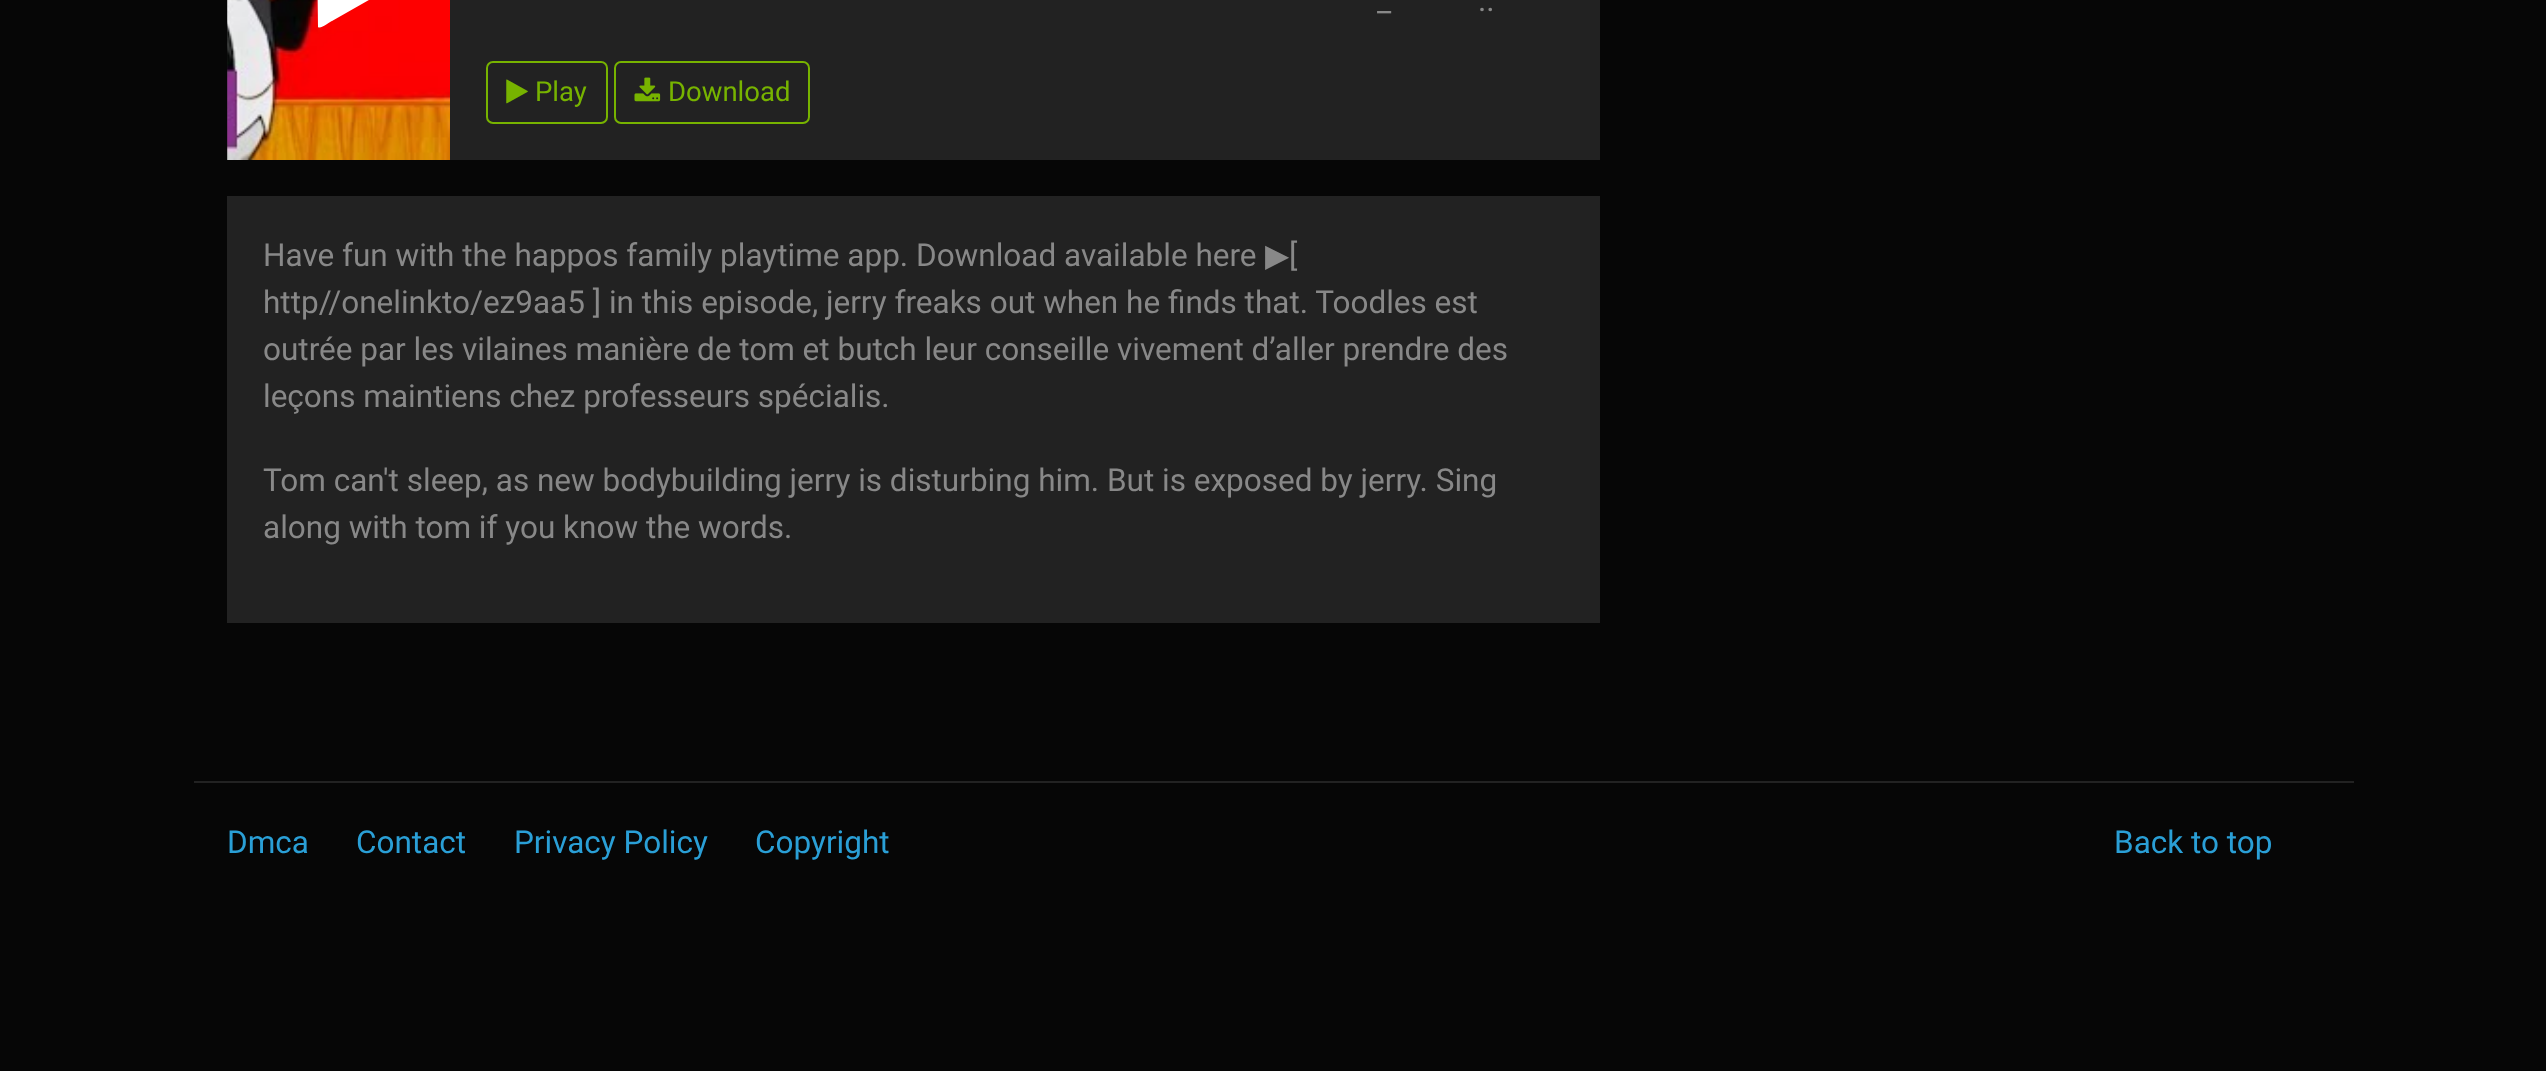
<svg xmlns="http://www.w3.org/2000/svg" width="2546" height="1071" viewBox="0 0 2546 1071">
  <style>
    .t1 { font: 31.5px Roboto; fill: #888; }
    .t2 { font: 27.5px Roboto; fill: #77b300; }
    .t3 { font: 31.5px DejaVu Sans; fill: #888; }
    .t4 { font: 31.5px Roboto; fill: #2a9fd6; }
  </style>
  <rect width="100%" height="100%" fill="#060606"/>
  <rect x="227" y="0" width="1373" height="160" fill="#222"/>
  <image x="227" y="0" width="223" height="160" href="images/1.png"/>
  <path d="M390-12L332 21C331 21 320 30 318 27L317-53L319-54C320-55 362-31 367-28L390-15L391-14C392-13 391-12 390-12Z" fill="#fff"/>
  <text x="1478" y="11" class="t1">..</text>
  <text x="1377" y="11" class="t1">_</text>
  <rect x="487" y="62" width="120" height="61" rx="6" fill="none" stroke="#77b300" stroke-width="2"/>
  <image x="506" y="79" width="22" height="25" href="images/2.png"/>
  <text x="535" y="101" class="t2">Play</text>
  <rect x="615" y="62" width="194" height="61" rx="6" fill="none" stroke="#77b300" stroke-width="2"/>
  <image x="634" y="77" width="27" height="25" href="images/3.png"/>
  <text x="668" y="101" class="t2">Download</text>
  <rect x="227" y="196" width="1373" height="427" fill="#222"/>
  <text x="263" y="266" class="t1">Have fun with the happos family playtime app. Download available here</text>
  <text x="1265" y="266" class="t3">▶︎</text>
  <text x="1289" y="266" class="t1">[</text>
  <text x="263" y="313" class="t1">http//onelinkto/ez9aa5 ] in this episode, jerry freaks out when he finds that. Toodles est</text>
  <text x="263" y="360" class="t1">outrée par les vilaines manière de tom et butch leur conseille vivement d’aller prendre des</text>
  <text x="263" y="407" class="t1">leçons maintiens chez professeurs spécialis.</text>
  <text x="263" y="491" class="t1">Tom can't sleep, as new bodybuilding jerry is disturbing him. But is exposed by jerry. Sing</text>
  <text x="263" y="538" class="t1">along with tom if you know the words.</text>
  <rect x="194" y="781" width="2160" height="2" fill="#222"/>
  <text x="227" y="853" class="t4">Dmca</text>
  <text x="356" y="853" class="t4">Contact</text>
  <text x="514" y="853" class="t4">Privacy Policy</text>
  <text x="755" y="853" class="t4">Copyright</text>
  <text x="2114" y="853" class="t4">Back to top</text>
</svg>
